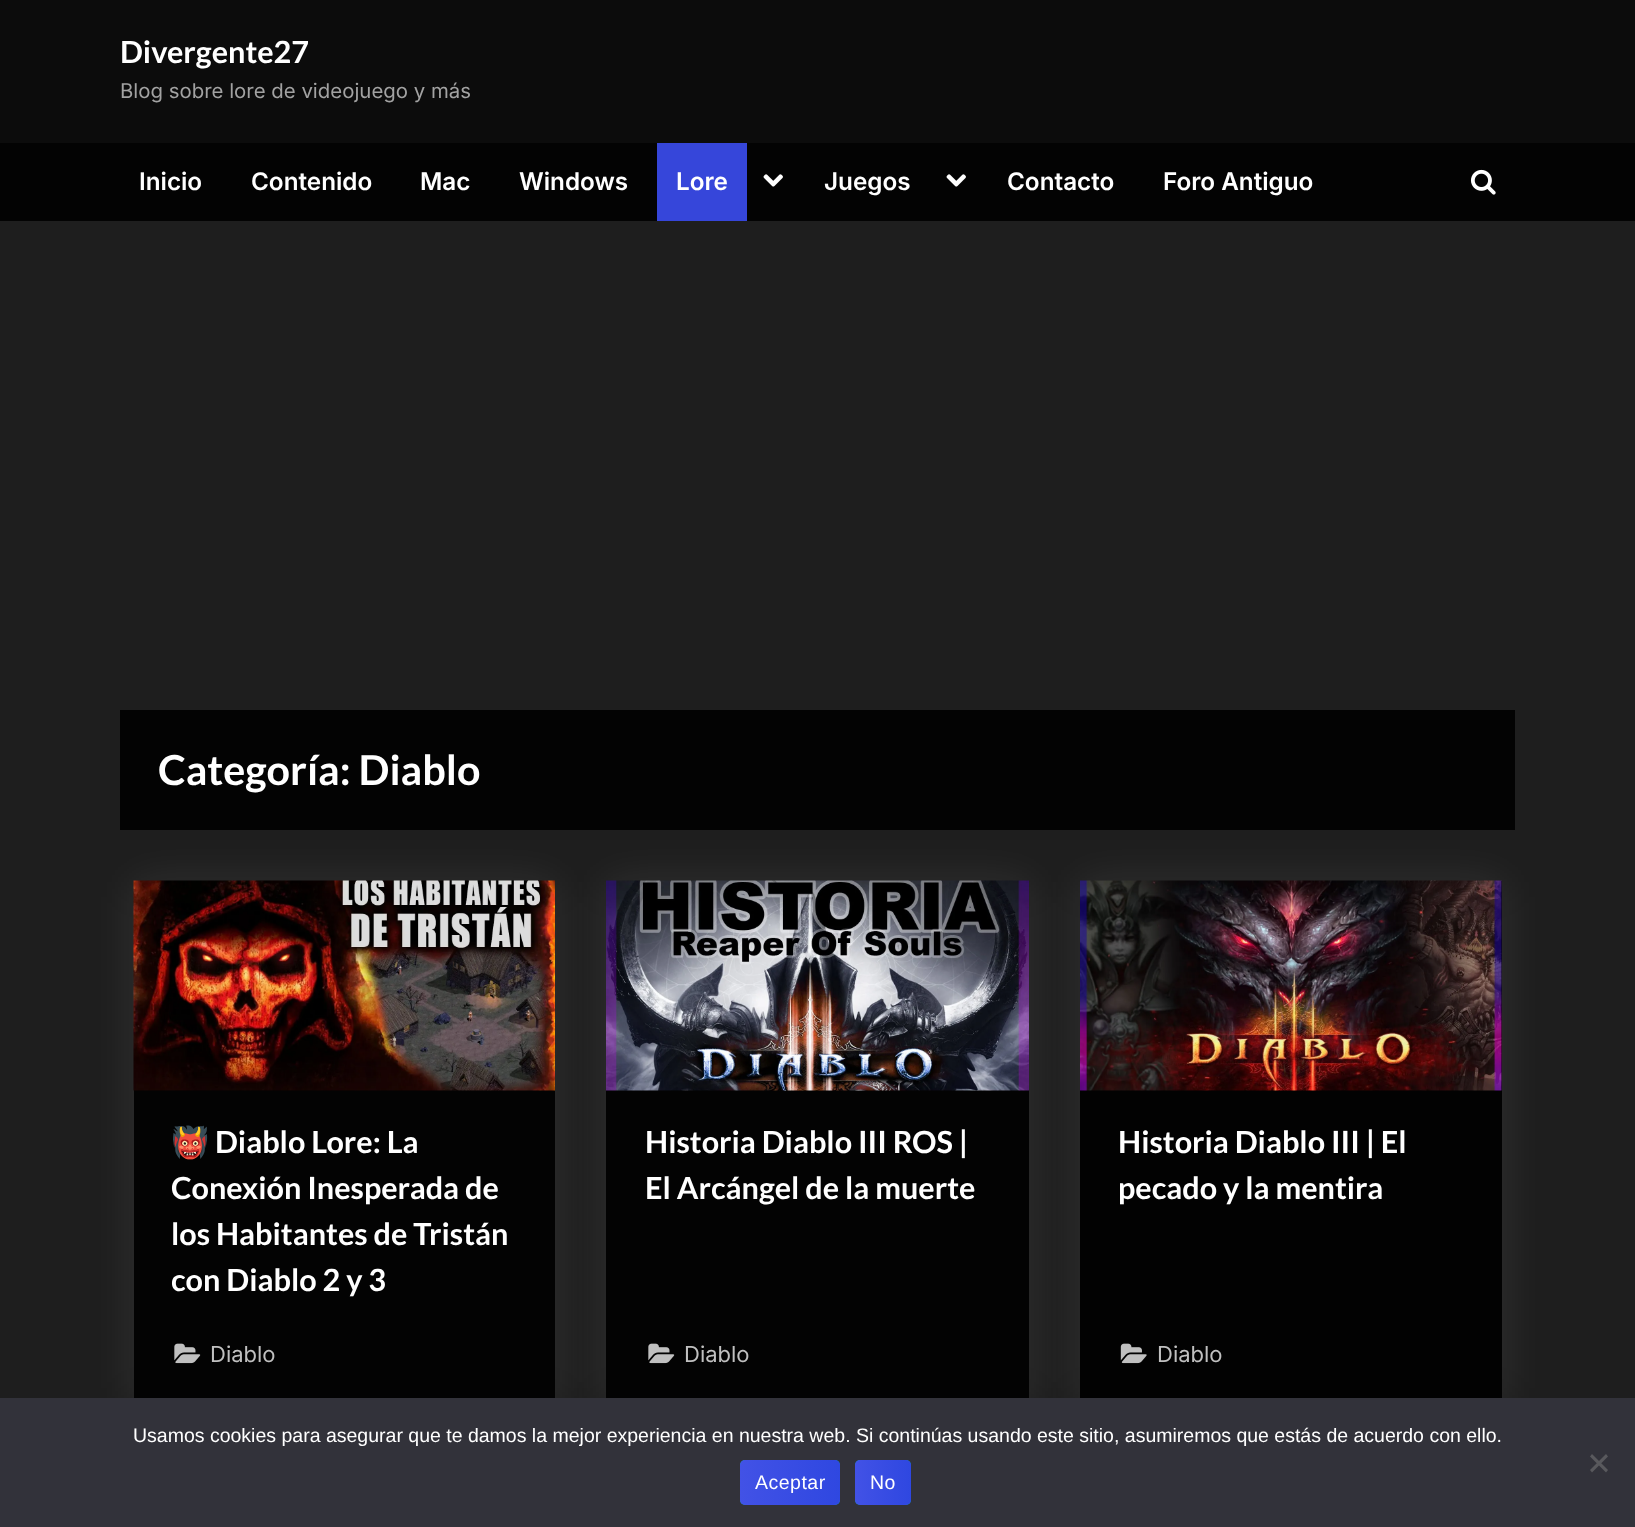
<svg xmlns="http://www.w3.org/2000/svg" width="1635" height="1527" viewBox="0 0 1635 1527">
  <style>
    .t1 { font: bold 30.6px Lato; fill: #fff; }
    .t2 { font: 20.4px Inter; fill: #a2a2a2; }
    .t3 { font: 600 24.25px Inter; fill: #fff; }
    .t4 { font: bold 41.25px Lato; fill: #fff; }
    .t5 { font: bold 30.6px Noto Color Emoji; fill: #fff; }
    .t6 { font: 22px Inter; fill: #c0c0c0; }
    .t7 { font: 19.5px Liberation Sans; fill: #fff; }
    .t8 { font: 19.5px Liberation Sans; letter-spacing: 0.5px; fill: #fff; }
  </style>
  <defs>
    <clipPath id="clip1"><path d="M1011 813H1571V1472H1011ZM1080 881H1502V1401H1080Z" clip-rule="evenodd"/></clipPath>
    <linearGradient id="g1" gradientUnits="userSpaceOnUse" x1="740" y1="1482" x2="941" y2="1482"><stop offset="0" stop-color="#4252e6"/><stop offset="0.51" stop-color="#3142e4" stop-opacity="0.95"/><stop offset="1" stop-color="#4252e6"/></linearGradient>
    <linearGradient id="g2" gradientUnits="userSpaceOnUse" x1="855" y1="1482" x2="966" y2="1482"><stop offset="0" stop-color="#4252e6"/><stop offset="0.51" stop-color="#3142e4" stop-opacity="0.95"/><stop offset="1" stop-color="#4252e6"/></linearGradient>
  </defs>
  <rect width="100%" height="100%" fill="#1e1e1e"/>
  <rect x="0" y="0" width="1635" height="143" fill="#0c0c0c"/>
  <text x="120" y="63" class="t1">Divergente27</text>
  <text x="120" y="98" class="t2">Blog sobre lore de videojuego y más</text>
  <rect x="0" y="143" width="1635" height="78" fill="#030303"/>
  <text x="139" y="190" class="t3">Inicio</text>
  <text x="251" y="190" class="t3">Contenido</text>
  <text x="420" y="190" class="t3">Mac</text>
  <text x="519" y="190" class="t3">Windows</text>
  <rect x="657" y="143" width="90" height="78" fill="#3646da"/>
  <text x="676" y="190" class="t3">Lore</text>
  <image x="763" y="174" width="20" height="13" href="images/1.png"/>
  <text x="824" y="190" class="t3">Juegos</text>
  <image x="946" y="174" width="20" height="13" href="images/1.png"/>
  <text x="1007" y="190" class="t3">Contacto</text>
  <text x="1163" y="190" class="t3">Foro Antiguo</text>
  <image x="1470" y="169" width="26" height="26" href="images/2.png"/>
  <rect x="120" y="710" width="1395" height="120" fill="#030303"/>
  <text x="158" y="785" class="t4">Categoría: Diablo</text>
  <rect x="134" y="882" width="421" height="521" fill="#ffffff17" filter="blur(22.5px)"/>
  <rect x="134" y="1090" width="421" height="308" fill="#030303"/>
  <image x="133" y="880" width="422" height="211" href="images/3.png"/>
  <text x="171" y="1153" class="t5">👹</text>
  <text x="215" y="1153" class="t1">Diablo Lore: La</text>
  <text x="171" y="1199" class="t1">Conexión Inesperada de</text>
  <text x="171" y="1245" class="t1">los Habitantes de Tristán</text>
  <text x="171" y="1291" class="t1">con Diablo 2 y 3</text>
  <image x="174" y="1343" width="27" height="21" href="images/4.png"/>
  <text x="210" y="1362" class="t6">Diablo</text>
  <rect x="606" y="882" width="423" height="521" fill="#ffffff17" filter="blur(22.5px)"/>
  <rect x="606" y="1090" width="423" height="308" fill="#030303"/>
  <image x="606" y="880" width="423" height="211" href="images/5.png"/>
  <text x="645" y="1153" class="t1">Historia Diablo III ROS |</text>
  <text x="645" y="1199" class="t1">El Arcángel de la muerte</text>
  <image x="648" y="1343" width="27" height="21" href="images/4.png"/>
  <text x="684" y="1362" class="t6">Diablo</text>
  <g clip-path="url(#clip1)">
    <rect x="1080" y="882" width="422" height="521" fill="#ffffff17" filter="blur(22.5px)"/>
  </g>
  <rect x="1080" y="881" width="422" height="517" fill="#000000e8"/>
  <image x="1080" y="880" width="422" height="211" href="images/6.png"/>
  <text x="1118" y="1153" class="t1">Historia Diablo III | El</text>
  <text x="1118" y="1199" class="t1">pecado y la mentira</text>
  <image x="1120" y="1343" width="27" height="21" href="images/7.png"/>
  <text x="1157" y="1362" class="t6">Diablo</text>
  <rect x="0" y="1398" width="1635" height="129" fill="#32323a"/>
  <text x="133" y="1442" class="t7">Usamos cookies para asegurar que te damos la mejor experiencia en nuestra web. Si continúas usando este sitio, asumiremos que estás de acuerdo con ello.</text>
  <path d="M1606 1454L1608 1456.5L1592 1472.5L1590 1470Z" fill="#59595d"/>
  <path d="M1590 1456.5L1592 1454L1608 1470L1606 1472.5Z" fill="#59595d"/>
  <rect x="740" y="1460" width="100" height="45" rx="5" fill="#00a99d"/>
  <rect x="740" y="1460" width="100" height="45" rx="5" fill="url(#g1)"/>
  <text x="755" y="1489" class="t8">Aceptar</text>
  <rect x="855" y="1460" width="56" height="45" rx="5" fill="#00a99d"/>
  <rect x="855" y="1460" width="56" height="45" rx="5" fill="url(#g2)"/>
  <text x="870" y="1489" class="t8">No</text>
</svg>
